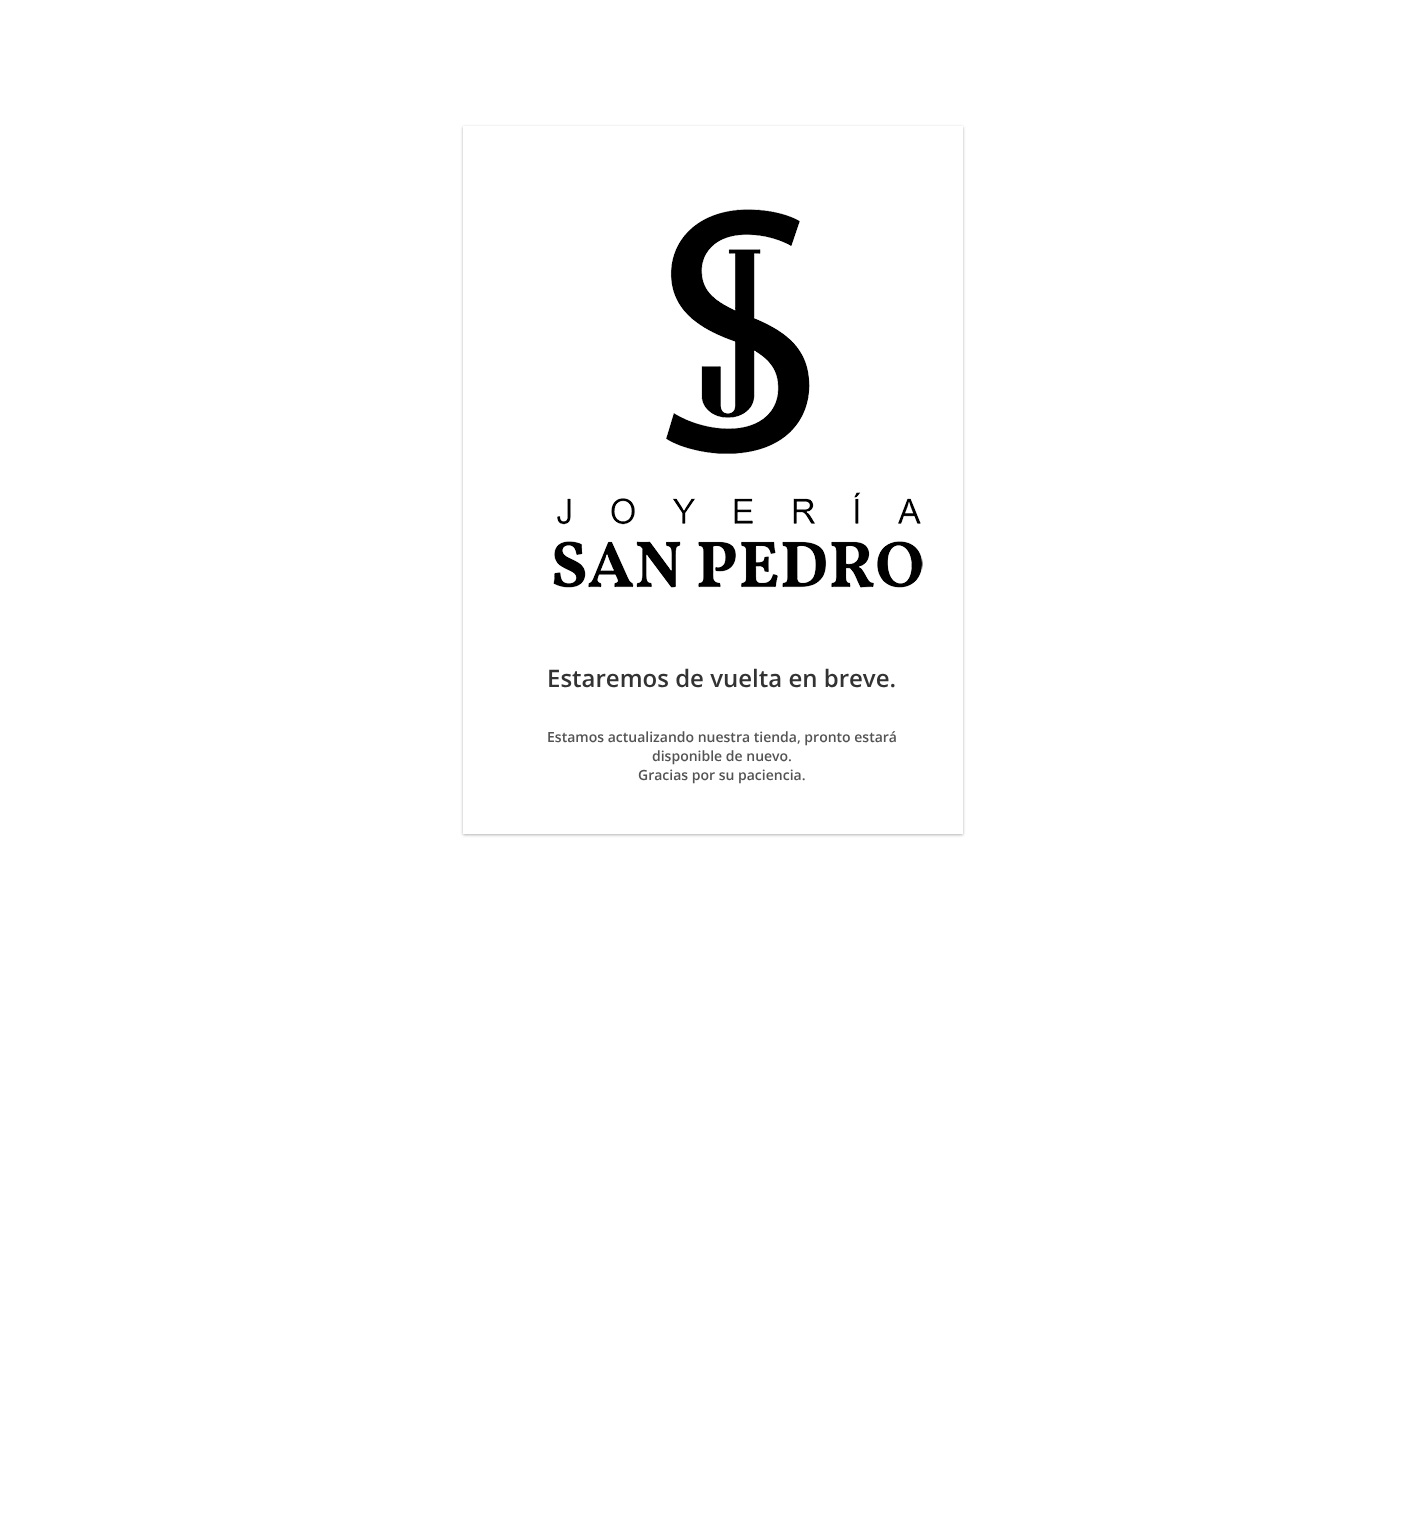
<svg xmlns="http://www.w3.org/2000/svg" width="1426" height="1522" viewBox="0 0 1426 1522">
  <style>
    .t1 { font: 600 24px Open Sans; fill: #333; }
    .t2 { font: 600 14px Open Sans; fill: #555454; }
  </style>
  <defs>
    <clipPath id="clip1"><path d="M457 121H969V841H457ZM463 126H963V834H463Z" clip-rule="evenodd"/></clipPath>
  </defs>
  <rect width="100%" height="100%" fill="#fff"/>
  <g clip-path="url(#clip1)">
    <rect x="463" y="127" width="500" height="708" fill="#0000004d" filter="blur(1.5px)"/>
  </g>
  <image x="553" y="209" width="370" height="379" href="images/1.png"/>
  <text x="547" y="687" class="t1">Estaremos de vuelta en breve.</text>
  <text x="547" y="742" class="t2">Estamos actualizando nuestra tienda, pronto estará</text>
  <text x="652" y="761" class="t2">disponible de nuevo.</text>
  <text x="638" y="780" class="t2">Gracias por su paciencia.</text>
</svg>
